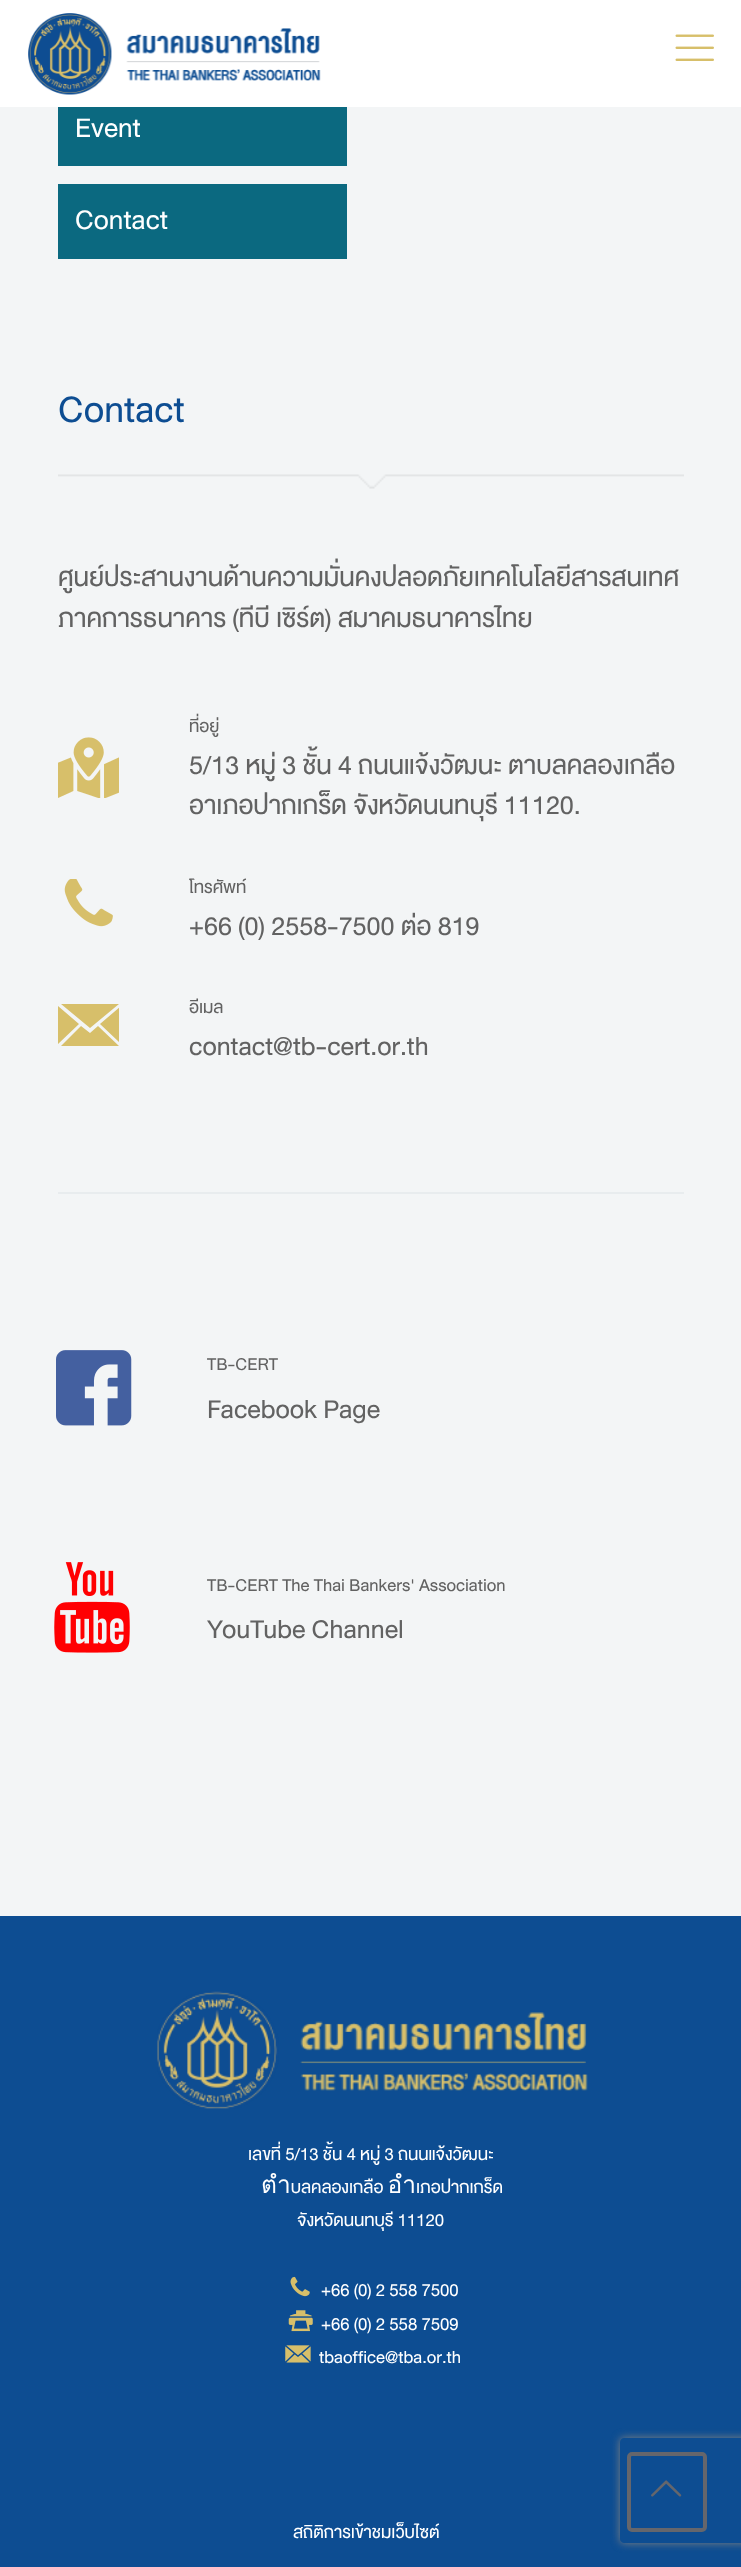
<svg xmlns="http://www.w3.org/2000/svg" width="741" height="2567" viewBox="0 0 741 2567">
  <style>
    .t1 { font: 38.5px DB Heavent; fill: #fff; }
    .t2 { font: 52.5px DB Heavent; fill: #0d4d92; }
    .t3 { font: 36.75px DB Heavent; fill: #626262; }
    .t4 { font: 24.5px DB Heavent; fill: #626262; }
    .t5 { font: 24.5px DB Heavent; fill: #fff; }
  </style>
  <defs>
    <clipPath id="clip1"><rect x="58" y="999" width="61" height="62"/></clipPath>
    <clipPath id="clip2"><path d="M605 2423H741V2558H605ZM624 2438H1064C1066 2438 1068 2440 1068 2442V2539C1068 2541 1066 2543 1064 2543H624C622 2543 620 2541 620 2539V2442C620 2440 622 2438 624 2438Z" clip-rule="evenodd"/></clipPath>
  </defs>
  <rect width="100%" height="100%" fill="#f3f5f6"/>
  <rect x="0" y="0" width="741" height="107" fill="#fff"/>
  <image x="28" y="13" width="293" height="82" href="images/1.png"/>
  <image x="675" y="34" width="39" height="27" href="images/2.png"/>
  <rect x="58" y="107" width="289" height="59" fill="#0b6980"/>
  <text x="75" y="137" class="t1">Event</text>
  <rect x="58" y="184" width="289" height="75" fill="#0b6980"/>
  <text x="75" y="229" class="t1">Contact</text>
  <image x="58" y="474" width="626" height="15" href="images/3.png"/>
  <text x="58" y="422" class="t2">Contact</text>
  <text x="58" y="586" class="t3">ศูนย์ประสานงานด้านความมั่นคงปลอดภัยเทคโนโลยีสารสนเทศ</text>
  <text x="58" y="627" class="t3">ภาคการธนาคาร (ทีบี เซิร์ต) สมาคมธนาคารไทย</text>
  <image x="58" y="737" width="61" height="61" href="images/4.png"/>
  <text x="189" y="732" class="t4">ที่อยู่</text>
  <text x="189" y="774" class="t3">5/13 หมู่ 3 ชั้น 4 ถนนแจ้งวัฒนะ ตาบลคลองเกลือ</text>
  <text x="189" y="814" class="t3">อาเภอปากเกร็ด จังหวัดนนทบุรี 11120.</text>
  <image x="64" y="879" width="49" height="48" href="images/5.png"/>
  <text x="189" y="893" class="t4">โทรศัพท์</text>
  <text x="189" y="935" class="t3">+66 (0) 2558-7500 ต่อ 819</text>
  <g clip-path="url(#clip1)">
    <path d="M58 1043V1006L79 1024L58 1044ZM61 1004H119L90 1028ZM61 1046L81 1026L90 1033L98 1026L119 1046ZM100 1024L121 1006V1044Z" fill="#d7bf6a"/>
  </g>
  <text x="189" y="1013" class="t4">อีเมล</text>
  <text x="189" y="1055" class="t3">contact@tb-cert.or.th</text>
  <rect x="58" y="1192" width="626" height="2" fill="#e8ecee"/>
  <image x="56" y="1350" width="76" height="76" href="images/6.png"/>
  <text x="207" y="1370" class="t4">TB-CERT</text>
  <text x="207" y="1418" class="t3">Facebook Page</text>
  <image x="54" y="1562" width="76" height="91" href="images/7.png"/>
  <text x="207" y="1591" class="t4">TB-CERT The Thai Bankers' Association</text>
  <text x="207" y="1638" class="t3">YouTube Channel</text>
  <rect x="0" y="1916" width="741" height="651" fill="#0d4d92"/>
  <image x="157" y="1991" width="431" height="118" href="images/8.png"/>
  <text x="248" y="2160" class="t5">เลขที่ 5/13 ชั้น 4 หมู่ 3 ถนนแจ้งวัฒนะ</text>
  <text x="261" y="2193" class="t5">ตำบลคลองเกลือ อำเภอปากเกร็ด</text>
  <text x="297" y="2226" class="t5">จังหวัดนนทบุรี 11120</text>
  <image x="290" y="2276" width="20" height="21" href="images/9.png"/>
  <text x="321" y="2296" class="t5">+66 (0) 2 558 7500</text>
  <image x="288" y="2310" width="25" height="22" href="images/10.png"/>
  <text x="321" y="2330" class="t5">+66 (0) 2 558 7509</text>
  <image x="285" y="2345" width="26" height="18" href="images/11.png"/>
  <text x="319" y="2363" class="t5">tbaoffice@tba.or.th</text>
  <text x="293" y="2538" class="t5">สถิติการเข้าชมเว็บไซต์</text>
  <g clip-path="url(#clip2)">
    <rect x="620" y="2438" width="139" height="105" rx="4" fill="#808080" filter="blur(4.5px)"/>
  </g>
  <rect x="629" y="2454" width="76" height="76" rx="3" fill="none" stroke="#65666c" stroke-width="4"/>
  <image x="651" y="2480" width="31" height="17" href="images/12.png"/>
</svg>
